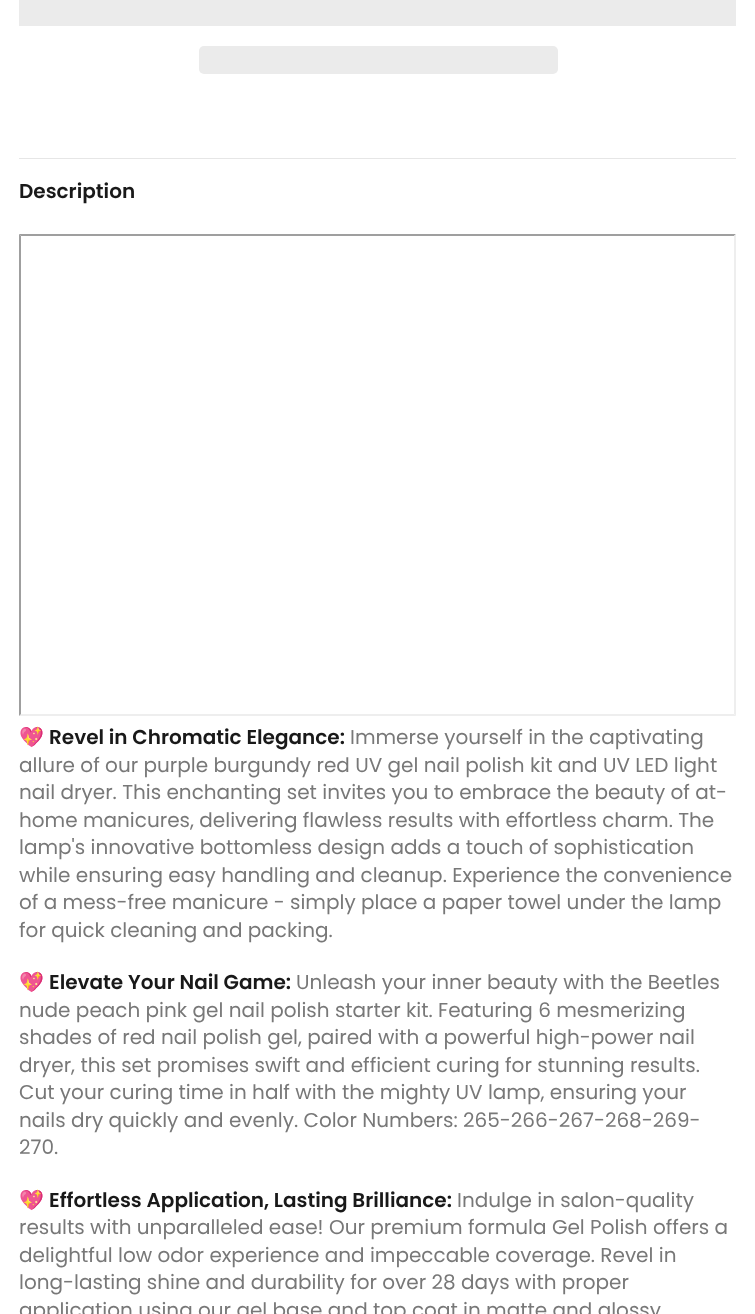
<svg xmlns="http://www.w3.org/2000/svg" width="755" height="1314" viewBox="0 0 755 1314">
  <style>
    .t1 { font: 600 20px Poppins; fill: #191919; }
    .t2 { font: 20px Noto Color Emoji; fill: #787878; }
    .t3 { font: 20px Poppins; fill: #787878; }
  </style>
  <defs>
    <clipPath id="clip1"><rect x="19" y="234" width="717" height="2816"/></clipPath>
  </defs>
  <rect width="100%" height="100%" fill="#fff"/>
  <rect x="19" y="0" width="717" height="26" fill="#ebebeb"/>
  <rect x="199" y="46" width="359" height="28" rx="5" fill="#ebebeb"/>
  <rect x="19" y="158" width="717" height="1" fill="#e6e6e6"/>
  <text x="19" y="198" class="t1">Description</text>
  <path d="M19 234H736L734 236H21Z" fill="#9f9f9f"/>
  <path d="M736 234V716L734 714V236Z" fill="#eee"/>
  <path d="M736 716H19L21 714H734Z" fill="#eee"/>
  <path d="M19 716V234L21 236V714Z" fill="#9f9f9f"/>
  <g clip-path="url(#clip1)">
    <text x="19" y="744" class="t2">💖</text>
  </g>
  <text x="49" y="744" class="t1">Revel in Chromatic Elegance:</text>
  <text x="350" y="744" class="t3">Immerse yourself in the captivating</text>
  <text x="19" y="772" class="t3">allure of our purple burgundy red UV gel nail polish kit and UV LED light</text>
  <text x="19" y="799" class="t3">nail dryer. This enchanting set invites you to embrace the beauty of at-</text>
  <text x="19" y="827" class="t3">home manicures, delivering flawless results with effortless charm. The</text>
  <text x="19" y="854" class="t3">lamp's innovative bottomless design adds a touch of sophistication</text>
  <text x="19" y="882" class="t3">while ensuring easy handling and cleanup. Experience the convenience</text>
  <text x="19" y="909" class="t3">of a mess-free manicure - simply place a paper towel under the lamp</text>
  <text x="19" y="937" class="t3">for quick cleaning and packing.</text>
  <g clip-path="url(#clip1)">
    <text x="19" y="989" class="t2">💖</text>
  </g>
  <text x="49" y="989" class="t1">Elevate Your Nail Game:</text>
  <text x="296" y="989" class="t3">Unleash your inner beauty with the Beetles</text>
  <text x="19" y="1017" class="t3">nude peach pink gel nail polish starter kit. Featuring 6 mesmerizing</text>
  <text x="19" y="1044" class="t3">shades of red nail polish gel, paired with a powerful high-power nail</text>
  <text x="19" y="1072" class="t3">dryer, this set promises swift and efficient curing for stunning results.</text>
  <text x="19" y="1099" class="t3">Cut your curing time in half with the mighty UV lamp, ensuring your</text>
  <text x="19" y="1127" class="t3">nails dry quickly and evenly. Color Numbers: 265-266-267-268-269-</text>
  <text x="19" y="1154" class="t3">270.</text>
  <g clip-path="url(#clip1)">
    <text x="19" y="1207" class="t2">💖</text>
  </g>
  <text x="49" y="1207" class="t1">Effortless Application, Lasting Brilliance:</text>
  <text x="457" y="1207" class="t3">Indulge in salon-quality</text>
  <text x="19" y="1234" class="t3">results with unparalleled ease! Our premium formula Gel Polish offers a</text>
  <text x="19" y="1262" class="t3">delightful low odor experience and impeccable coverage. Revel in</text>
  <text x="19" y="1289" class="t3">long-lasting shine and durability for over 28 days with proper</text>
  <text x="19" y="1317" class="t3">application using our gel base and top coat in matte and glossy</text>
</svg>
